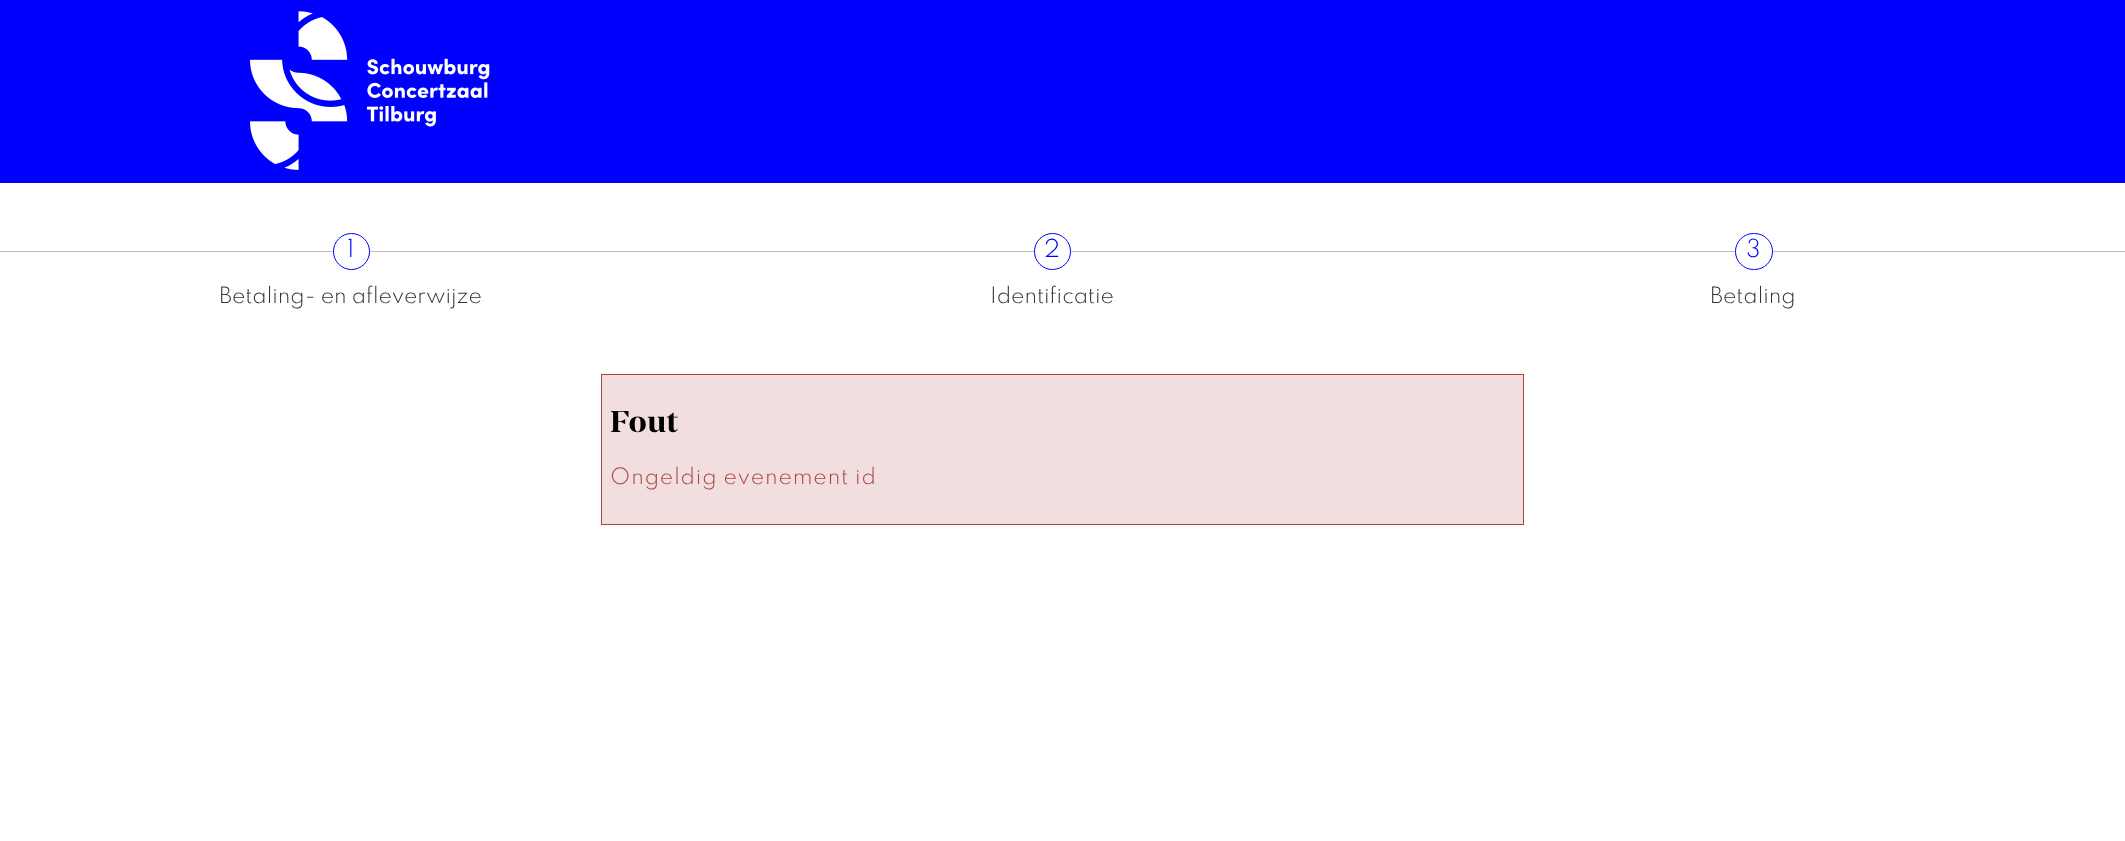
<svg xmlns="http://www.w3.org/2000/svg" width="2125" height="841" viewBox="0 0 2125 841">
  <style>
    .t1 { font: 300 22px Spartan; fill: #00f; }
    .t2 { font: 300 20px Spartan; fill: #333; }
    .t3 { font: bold 30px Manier; letter-spacing: 0.9px; fill: #000; }
    .t4 { font: 300 20px Spartan; letter-spacing: 0.9px; fill: #a94442; }
  </style>
  <rect width="100%" height="100%" fill="#fff"/>
  <rect x="0" y="0" width="2125" height="183" fill="#00f"/>
  <image x="250" y="11" width="240" height="159" href="images/1.png"/>
  <rect x="0" y="251" width="2125" height="1" fill="#bbb"/>
  <circle cx="351.5" cy="251.5" r="18" fill="#fff" stroke="#00f"/>
  <text x="347" y="257" class="t1">1</text>
  <text x="219" y="303" class="t2">Betaling- en afleverwijze</text>
  <circle cx="1052.5" cy="251.5" r="18" fill="#fff" stroke="#00f"/>
  <text x="1044" y="257" class="t1">2</text>
  <text x="990" y="303" class="t2">Identificatie</text>
  <rect x="1735.5" y="233.5" width="37" height="36" rx="18" fill="#fff" stroke="#00f"/>
  <text x="1746" y="257" class="t1">3</text>
  <text x="1710" y="303" class="t2">Betaling</text>
  <rect x="601.5" y="374.5" width="922" height="150" fill="#f2dede" stroke="#a94442"/>
  <text x="610" y="432" class="t3">Fout</text>
  <text x="610" y="484" class="t4">Ongeldig evenement id</text>
</svg>
